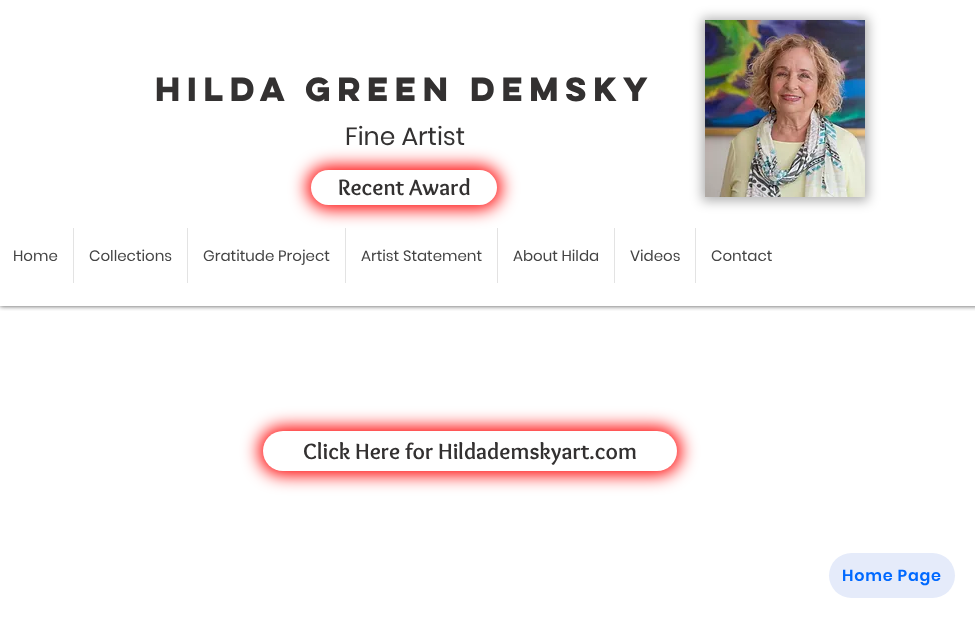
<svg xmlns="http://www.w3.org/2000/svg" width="975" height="618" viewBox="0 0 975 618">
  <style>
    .t1 { font: bold 30px 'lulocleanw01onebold'; fill: #333131; }
    .t2 { font: 25px Poppins; fill: #333131; }
    .t3 { font: bold 23px Overlock; fill: #333131; }
    .t4 { font: 15px Poppins; fill: #444; }
    .t5 { font: 600 16px Poppins; letter-spacing: 0.75px; fill: #0069ff; }
  </style>
  <defs>
    <clipPath id="clip1"><rect x="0" y="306" width="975" height="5"/></clipPath>
  </defs>
  <rect width="100%" height="100%" fill="#fff"/>
  <rect x="345" y="228" width="1" height="55" fill="#e3e3e3"/>
  <g clip-path="url(#clip1)">
    <rect x="0" y="0" width="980" height="306" fill="#000000b3" filter="blur(2.5px)"/>
  </g>
  <text x="155" y="101" class="t1">Hilda Green Demsky</text>
  <text x="345" y="145" class="t2">Fine Artist</text>
  <rect x="702" y="18" width="166" height="183" fill="#0000004f" filter="blur(6px)"/>
  <image x="705" y="20" width="160" height="177" href="images/1.png"/>
  <rect x="307" y="166" width="194" height="43" rx="21.5" fill="#f00" filter="blur(8.5px)"/>
  <rect x="311" y="170" width="186" height="35" rx="17.5" fill="#fff"/>
  <text x="338" y="195" class="t3">Recent Award</text>
  <text x="13" y="261" class="t4">Home</text>
  <rect x="73" y="228" width="1" height="55" fill="#e3e3e3"/>
  <text x="89" y="261" class="t4">Collections</text>
  <rect x="187" y="228" width="1" height="55" fill="#e3e3e3"/>
  <text x="203" y="261" class="t4">Gratitude Project</text>
  <text x="361" y="261" class="t4">Artist Statement</text>
  <rect x="497" y="228" width="1" height="55" fill="#e3e2e2"/>
  <text x="513" y="261" class="t4">About Hilda</text>
  <rect x="614" y="228" width="1" height="55" fill="#e3e3e3"/>
  <text x="630" y="261" class="t4">Videos</text>
  <rect x="695" y="228" width="1" height="55" fill="#e3e3e3"/>
  <text x="711" y="261" class="t4">Contact</text>
  <rect x="259" y="427" width="422" height="48" rx="24" fill="#f00" filter="blur(8.5px)"/>
  <rect x="263" y="431" width="414" height="40" rx="20" fill="#fff"/>
  <text x="303" y="459" class="t3">Click Here for Hildademskyart.com</text>
  <rect x="829" y="553" width="126" height="45" rx="22.5" fill="#e5ebfa"/>
  <text x="842" y="581" class="t5">Home Page</text>
</svg>
